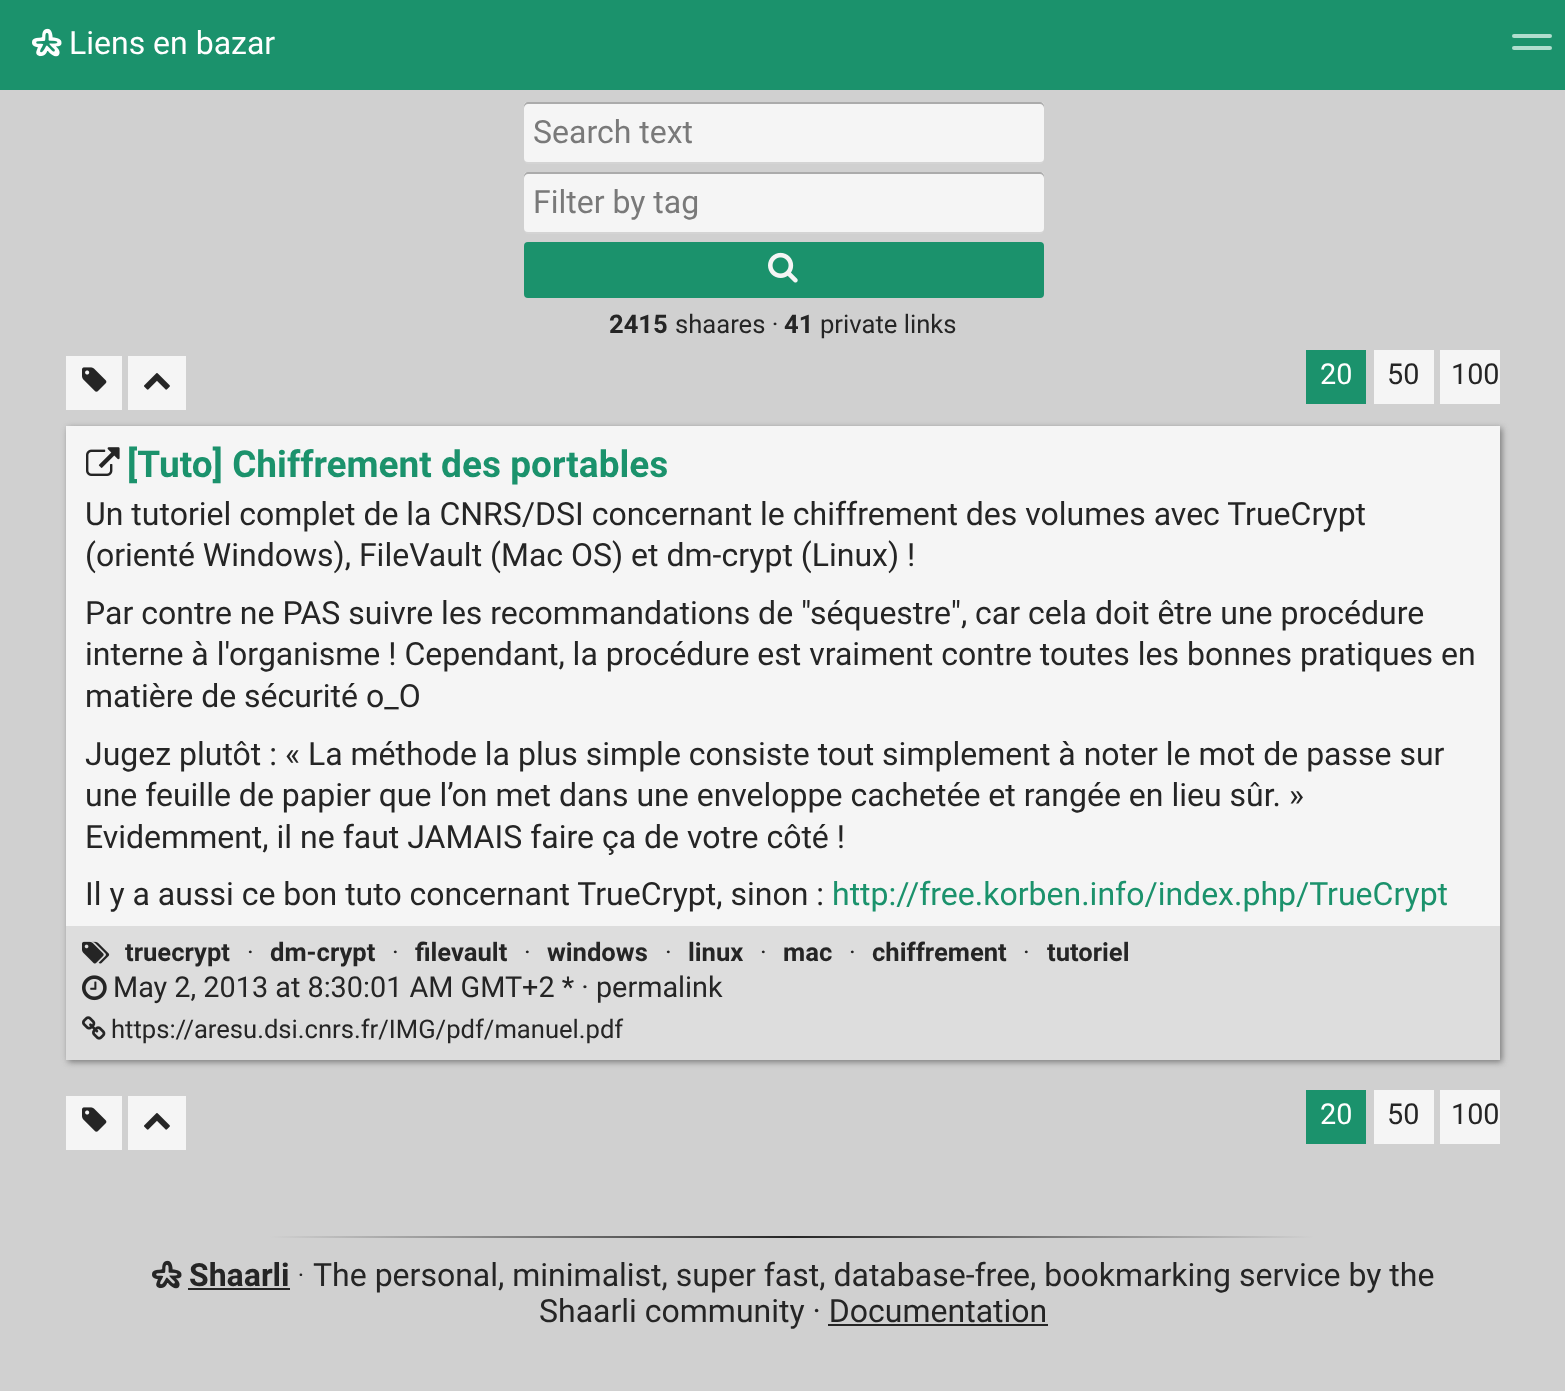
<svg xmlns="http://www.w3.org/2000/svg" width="1565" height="1391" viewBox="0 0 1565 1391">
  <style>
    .t1 { font: 32px Roboto; fill: #fff; }
    .t2 { font: 32px Roboto; fill: #797979; }
    .t3 { font: bold 25.6px Roboto; fill: #252525; }
    .t4 { font: 25.6px Roboto; fill: #252525; }
    .t5 { font: 28.8px Roboto; fill: #fff; }
    .t6 { font: 28.8px Roboto; fill: #252525; }
    .t7 { font: bold 37px Roboto; fill: #1b926c; }
    .t8 { font: 32px Roboto; fill: #252525; }
    .t9 { font: 32px Roboto; fill: #1b926c; }
    .t10 { font: bold 32px Roboto; fill: #252525; }
    .t11 { font: 300 32px Roboto; fill: #252525; }
  </style>
  <defs>
    <linearGradient id="g1" gradientUnits="userSpaceOnUse" x1="270" y1="1237" x2="1314" y2="1237"><stop offset="0" stop-color="#d0d0d0"/><stop offset="0.5" stop-color="#252525"/><stop offset="1" stop-color="#d0d0d0"/></linearGradient>
  </defs>
  <rect width="100%" height="100%" fill="#d0d0d0"/>
  <rect x="0" y="0" width="1565" height="90" fill="#1b926c"/>
  <image x="32" y="28" width="30" height="29" href="images/1.png"/>
  <text x="69" y="54" class="t1">Liens en bazar</text>
  <rect x="1512" y="34" width="40" height="4" rx="2" fill="#b0ddce"/>
  <rect x="1512" y="46" width="40" height="4" rx="2" fill="#b0ddce"/>
  <path d="M524 158V160C524 162 526 164 528 164H1040C1042 164 1044 162 1044 160V158C1044 160 1042 162 1040 162H528C526 162 524 160 524 158Z" fill="#d4d4d4"/>
  <rect x="524" y="102" width="520" height="60" rx="4" fill="#f5f5f5"/>
  <path d="M528 104H1040C1042 104 1044 106 1044 108V106C1044 104 1042 102 1040 102H528C526 102 524 104 524 106V108C524 106 526 104 528 104Z" fill="#0000004d"/>
  <text x="533" y="143" class="t2">Search text</text>
  <path d="M524 228V230C524 232 526 234 528 234H1040C1042 234 1044 232 1044 230V228C1044 230 1042 232 1040 232H528C526 232 524 230 524 228Z" fill="#d4d4d4"/>
  <rect x="524" y="172" width="520" height="60" rx="4" fill="#f5f5f5"/>
  <path d="M528 174H1040C1042 174 1044 176 1044 178V176C1044 174 1042 172 1040 172H528C526 172 524 174 524 176V178C524 176 526 174 528 174Z" fill="#0000004d"/>
  <text x="533" y="213" class="t2">Filter by tag</text>
  <rect x="524" y="242" width="520" height="56" rx="4" fill="#1b926c"/>
  <image x="768" y="252" width="30" height="31" href="images/2.png"/>
  <text x="609" y="333" class="t3">2415</text>
  <text x="675" y="333" class="t4">shaares ·</text>
  <text x="784" y="333" class="t3">41</text>
  <text x="820" y="333" class="t4">private links</text>
  <rect x="66" y="356" width="56" height="54" fill="#f5f5f5"/>
  <image x="82" y="367" width="25" height="25" href="images/3.png"/>
  <rect x="128" y="356" width="58" height="54" fill="#f5f5f5"/>
  <image x="144" y="373" width="26" height="17" href="images/4.png"/>
  <rect x="1306" y="350" width="60" height="54" fill="#1b926c"/>
  <text x="1320" y="384" class="t5">20</text>
  <rect x="1374" y="350" width="60" height="54" fill="#f5f5f5"/>
  <text x="1387" y="384" class="t6">50</text>
  <rect x="1440" y="350" width="60" height="54" fill="#f5f5f5"/>
  <text x="1451" y="384" class="t6">100</text>
  <rect x="68" y="428" width="1434" height="634" fill="#797979" filter="blur(3px)"/>
  <rect x="66" y="426" width="1434" height="500" fill="#f5f5f5"/>
  <image x="86" y="447" width="34" height="29" href="images/5.png"/>
  <text x="127" y="477" class="t7">[Tuto] Chiffrement des portables</text>
  <text x="85" y="525" class="t8">Un tutoriel complet de la CNRS/DSI concernant le chiffrement des volumes avec TrueCrypt</text>
  <text x="85" y="566" class="t8">(orienté Windows), FileVault (Mac OS) et dm-crypt (Linux) !</text>
  <text x="85" y="624" class="t8">Par contre ne PAS suivre les recommandations de "séquestre", car cela doit être une procédure</text>
  <text x="85" y="665" class="t8">interne à l'organisme ! Cependant, la procédure est vraiment contre toutes les bonnes pratiques en</text>
  <text x="85" y="707" class="t8">matière de sécurité o_O</text>
  <text x="85" y="765" class="t8">Jugez plutôt : « La méthode la plus simple consiste tout simplement à noter le mot de passe sur</text>
  <text x="85" y="806" class="t8">une feuille de papier que l’on met dans une enveloppe cachetée et rangée en lieu sûr. »</text>
  <text x="85" y="848" class="t8">Evidemment, il ne faut JAMAIS faire ça de votre côté !</text>
  <text x="85" y="905" class="t8">Il y a aussi ce bon tuto concernant TrueCrypt, sinon :</text>
  <text x="832" y="905" class="t9">http://free.korben.info/index.php/TrueCrypt</text>
  <rect x="66" y="926" width="1434" height="134" fill="#ddd"/>
  <image x="82" y="941" width="28" height="23" href="images/6.png"/>
  <text x="125" y="961" class="t3">truecrypt</text>
  <text x="247" y="961" class="t4">·</text>
  <text x="270" y="961" class="t3">dm-crypt</text>
  <text x="392" y="961" class="t4">·</text>
  <text x="415" y="961" class="t3">filevault</text>
  <text x="524" y="961" class="t4">·</text>
  <text x="547" y="961" class="t3">windows</text>
  <text x="665" y="961" class="t4">·</text>
  <text x="688" y="961" class="t3">linux</text>
  <text x="760" y="961" class="t4">·</text>
  <text x="783" y="961" class="t3">mac</text>
  <text x="849" y="961" class="t4">·</text>
  <text x="872" y="961" class="t3">chiffrement</text>
  <text x="1023" y="961" class="t4">·</text>
  <text x="1047" y="961" class="t3">tutoriel</text>
  <image x="82" y="975" width="25" height="26" href="images/7.png"/>
  <text x="113" y="997" class="t6">May 2, 2013 at 8:30:01 AM GMT+2 * · permalink</text>
  <image x="82" y="1016" width="24" height="24" href="images/8.png"/>
  <text x="111" y="1038" class="t4">https://aresu.dsi.cnrs.fr/IMG/pdf/manuel.pdf</text>
  <rect x="66" y="1096" width="56" height="54" fill="#f5f5f5"/>
  <image x="82" y="1107" width="25" height="25" href="images/3.png"/>
  <rect x="128" y="1096" width="58" height="54" fill="#f5f5f5"/>
  <image x="144" y="1113" width="26" height="17" href="images/4.png"/>
  <rect x="1306" y="1090" width="60" height="54" fill="#1b926c"/>
  <text x="1320" y="1124" class="t5">20</text>
  <rect x="1374" y="1090" width="60" height="54" fill="#f5f5f5"/>
  <text x="1387" y="1124" class="t6">50</text>
  <rect x="1440" y="1090" width="60" height="54" fill="#f5f5f5"/>
  <text x="1451" y="1124" class="t6">100</text>
  <rect x="270" y="1236" width="1044" height="2" fill="url(#g1)"/>
  <image x="152" y="1260" width="30" height="29" href="images/9.png"/>
  <text x="189" y="1286" class="t10">Shaarli</text>
  <rect x="188" y="1288" width="102" height="2" fill="#252525"/>
  <text x="297" y="1286" class="t11">·</text>
  <text x="313" y="1286" class="t8">The personal, minimalist, super fast, database-free, bookmarking service by the</text>
  <text x="539" y="1322" class="t8">Shaarli community · Documentation</text>
  <rect x="828" y="1324" width="220" height="2" fill="#252525"/>
</svg>
